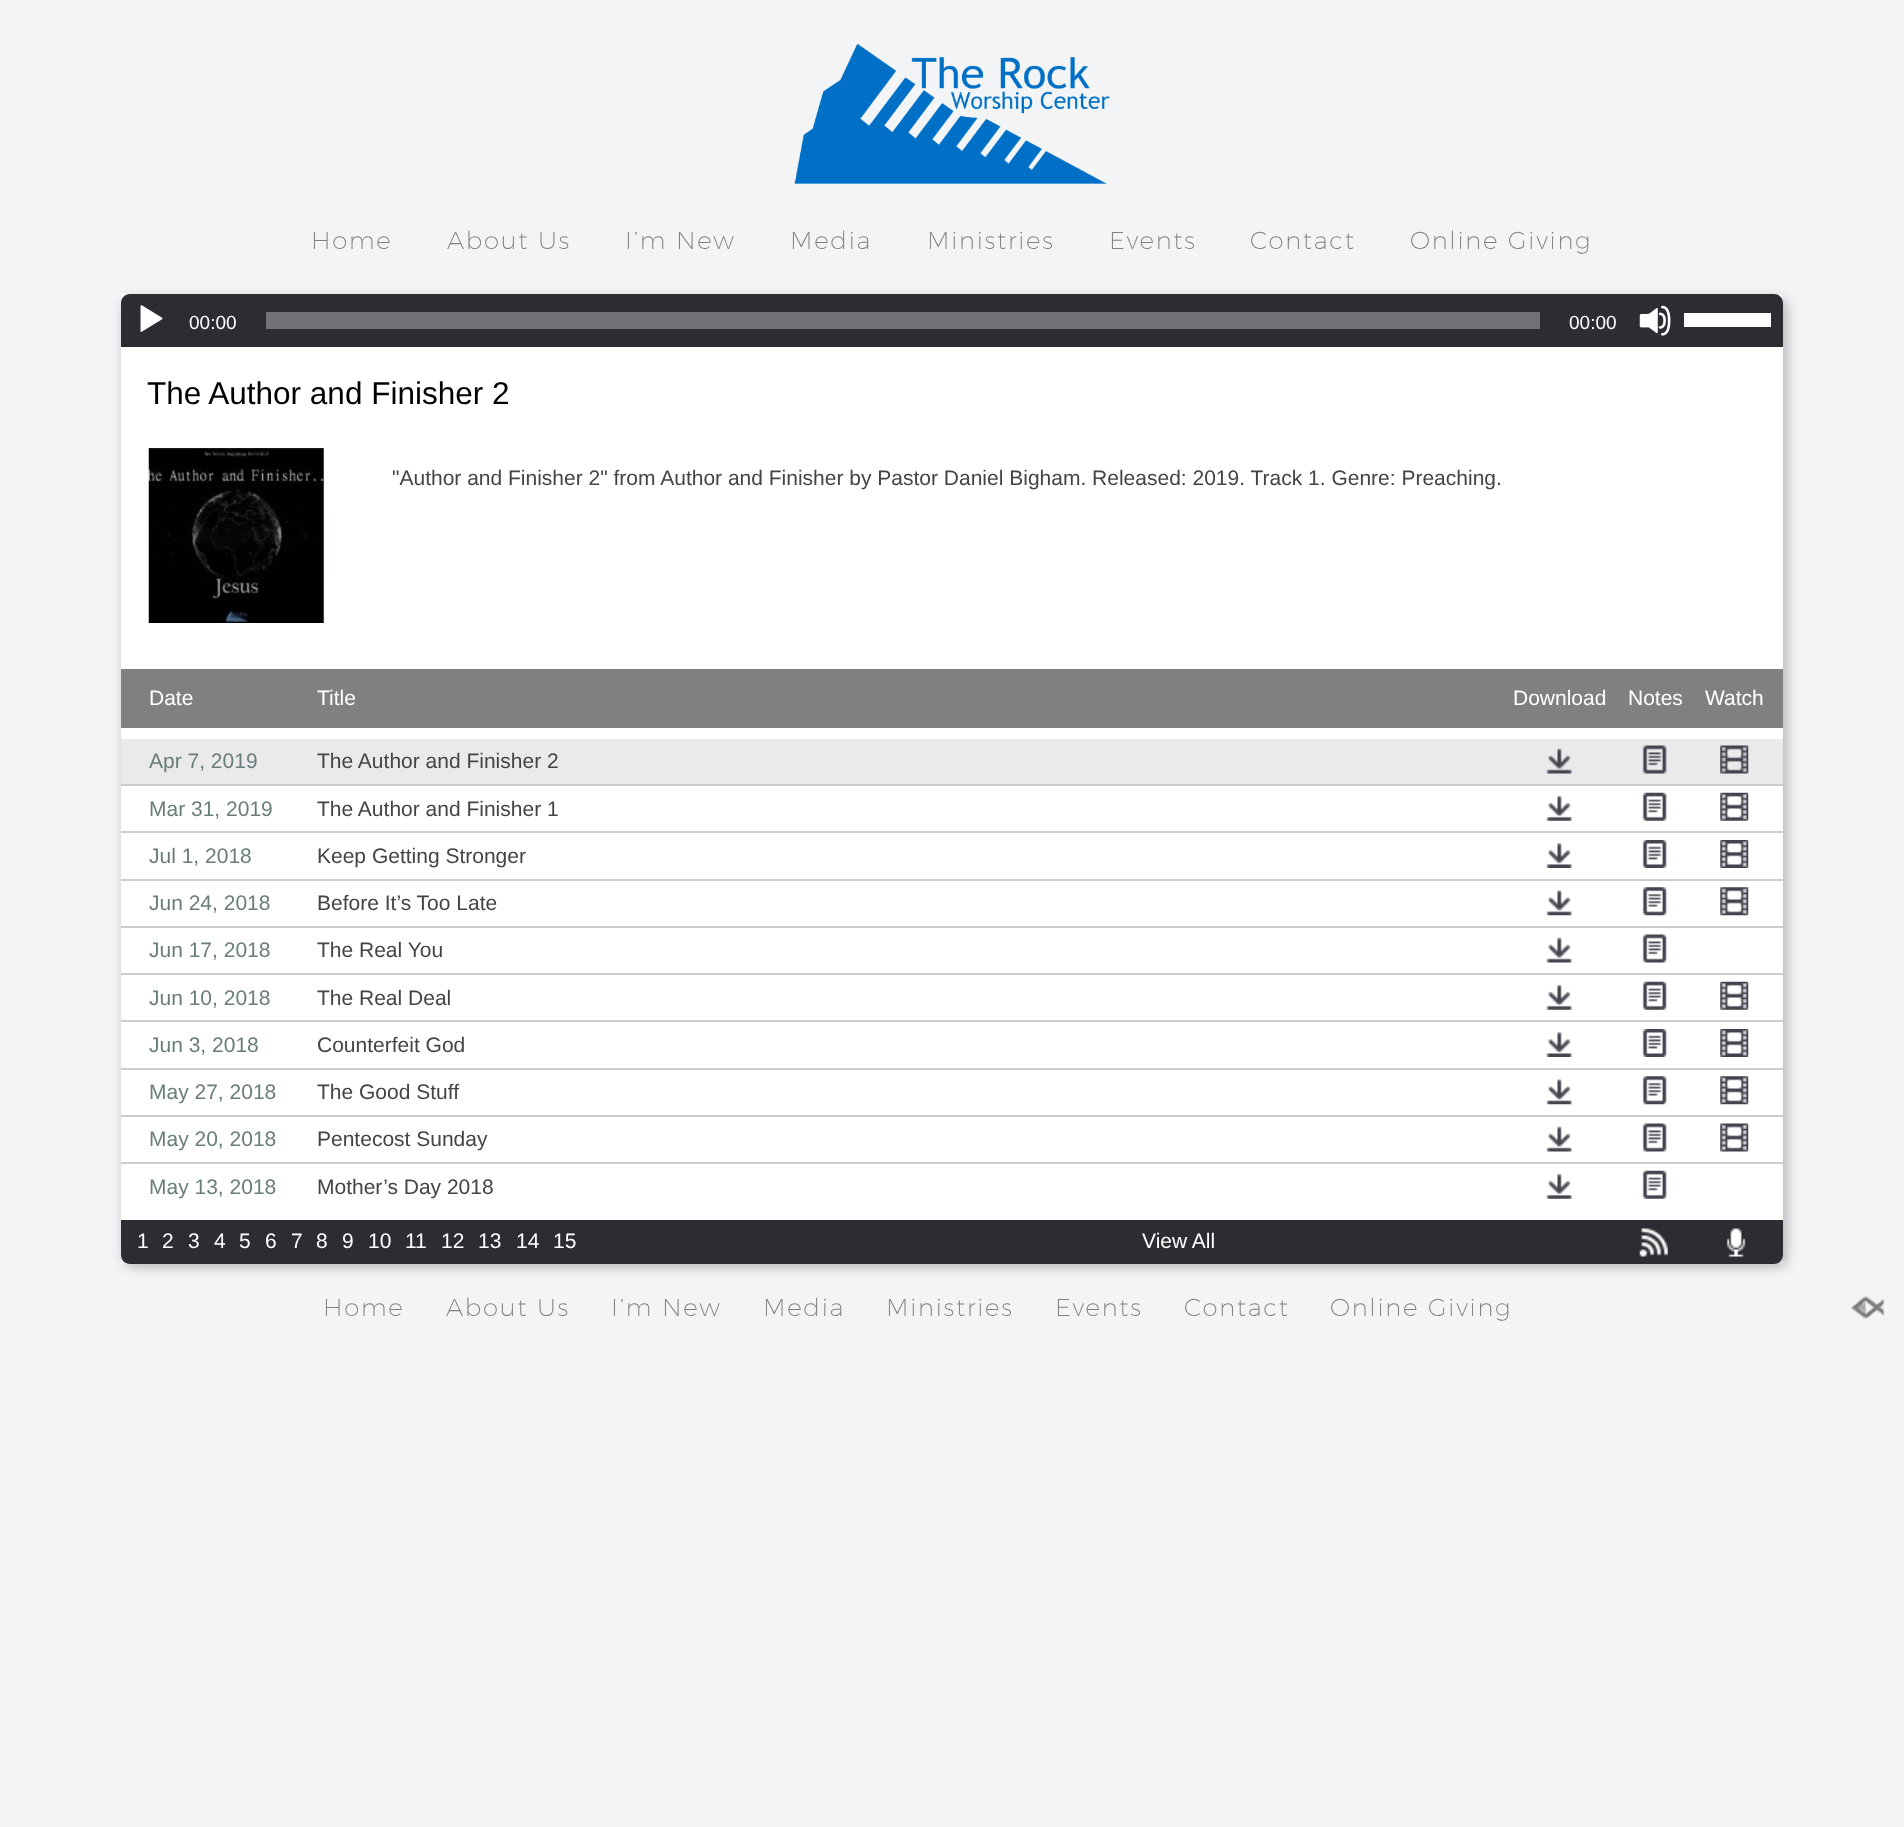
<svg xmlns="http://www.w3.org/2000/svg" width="1904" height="1827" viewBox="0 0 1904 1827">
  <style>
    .t1 { font: 200 24.5px Montserrat; letter-spacing: 1.75px; fill: #808080; }
    .t2 { font: 19px Liberation Sans; fill: #fff; }
    .t3 { font: 31.5px Liberation Sans; fill: #000; }
    .t4 { font: 21px Liberation Sans; fill: #444; }
    .t5 { font: 21px Liberation Sans; fill: #fff; }
    .t6 { font: 21px Liberation Sans; fill: #687e7c; }
  </style>
  <rect width="100%" height="100%" fill="#f3f4f5"/>
  <image x="794" y="43" width="316" height="141" href="images/1.png"/>
  <text x="311" y="249" class="t1">Home</text>
  <text x="447" y="249" class="t1">About Us</text>
  <text x="625" y="249" class="t1">I’m New</text>
  <text x="790" y="249" class="t1">Media</text>
  <text x="927" y="249" class="t1">Ministries</text>
  <text x="1109" y="249" class="t1">Events</text>
  <text x="1250" y="249" class="t1">Contact</text>
  <text x="1410" y="249" class="t1">Online Giving</text>
  <rect x="121" y="294" width="1662" height="970" fill="#fff"/>
  <rect x="124" y="298" width="1663" height="969" rx="9" fill="#00000040" filter="blur(6px)"/>
  <rect x="121" y="294" width="1662" height="970" rx="9" fill="#fff"/>
  <path d="M130 294H1774C1779 294 1783 298 1783 303V347H121V303C121 298 125 294 130 294Z" fill="#2c2d33"/>
  <image x="140" y="305" width="23" height="27" href="images/2.png"/>
  <text x="189" y="329" class="t2">00:00</text>
  <rect x="266" y="312" width="1274" height="17" fill="#727276"/>
  <text x="1569" y="329" class="t2">00:00</text>
  <image x="1639" y="305" width="32" height="31" href="images/3.png"/>
  <rect x="1684" y="313" width="87" height="14" fill="#fff"/>
  <text x="147" y="404" class="t3">The Author and Finisher 2</text>
  <image x="148" y="448" width="176" height="175" href="images/4.png"/>
  <text x="392" y="485" class="t4">"Author and Finisher 2" from Author and Finisher by Pastor Daniel Bigham. Released: 2019. Track 1. Genre: Preaching.</text>
  <rect x="121" y="669" width="1662" height="59" fill="#808080"/>
  <text x="149" y="705" class="t5">Date</text>
  <text x="317" y="705" class="t5">Title</text>
  <text x="1513" y="705" class="t5">Download</text>
  <text x="1628" y="705" class="t5">Notes</text>
  <text x="1705" y="705" class="t5">Watch</text>
  <rect x="121" y="739" width="1662" height="45" fill="#eaeaea"/>
  <text x="149" y="768" class="t6">Apr 7, 2019</text>
  <text x="317" y="768" class="t4">The Author and Finisher 2</text>
  <image x="1546" y="748" width="26" height="26" href="images/5.png"/>
  <image x="1642" y="745" width="25" height="29" href="images/6.png"/>
  <image x="1720" y="745" width="29" height="29" href="images/7.png"/>
  <rect x="121" y="784" width="1662" height="2" fill="#ccc"/>
  <text x="149" y="816" class="t6">Mar 31, 2019</text>
  <text x="317" y="816" class="t4">The Author and Finisher 1</text>
  <image x="1546" y="795" width="26" height="26" href="images/8.png"/>
  <image x="1642" y="792" width="25" height="29" href="images/9.png"/>
  <image x="1720" y="792" width="29" height="29" href="images/10.png"/>
  <rect x="121" y="831" width="1662" height="2" fill="#ccc"/>
  <text x="149" y="863" class="t6">Jul 1, 2018</text>
  <text x="317" y="863" class="t4">Keep Getting Stronger</text>
  <image x="1546" y="843" width="26" height="25" href="images/11.png"/>
  <image x="1642" y="840" width="25" height="28" href="images/12.png"/>
  <image x="1720" y="840" width="29" height="28" href="images/13.png"/>
  <rect x="121" y="879" width="1662" height="2" fill="#ccc"/>
  <text x="149" y="910" class="t6">Jun 24, 2018</text>
  <text x="317" y="910" class="t4">Before It’s Too Late</text>
  <image x="1546" y="890" width="26" height="26" href="images/14.png"/>
  <image x="1642" y="887" width="25" height="29" href="images/15.png"/>
  <image x="1720" y="887" width="29" height="29" href="images/16.png"/>
  <rect x="121" y="926" width="1662" height="2" fill="#ccc"/>
  <text x="149" y="957" class="t6">Jun 17, 2018</text>
  <text x="317" y="957" class="t4">The Real You</text>
  <image x="1546" y="937" width="26" height="26" href="images/17.png"/>
  <image x="1642" y="934" width="25" height="29" href="images/18.png"/>
  <rect x="121" y="973" width="1662" height="2" fill="#ccc"/>
  <text x="149" y="1005" class="t6">Jun 10, 2018</text>
  <text x="317" y="1005" class="t4">The Real Deal</text>
  <image x="1546" y="984" width="26" height="26" href="images/8.png"/>
  <image x="1642" y="981" width="25" height="29" href="images/9.png"/>
  <image x="1720" y="981" width="29" height="29" href="images/10.png"/>
  <rect x="121" y="1020" width="1662" height="2" fill="#ccc"/>
  <text x="149" y="1052" class="t6">Jun 3, 2018</text>
  <text x="317" y="1052" class="t4">Counterfeit God</text>
  <image x="1546" y="1032" width="26" height="25" href="images/11.png"/>
  <image x="1642" y="1029" width="25" height="28" href="images/12.png"/>
  <image x="1720" y="1029" width="29" height="28" href="images/13.png"/>
  <rect x="121" y="1068" width="1662" height="2" fill="#ccc"/>
  <text x="149" y="1099" class="t6">May 27, 2018</text>
  <text x="317" y="1099" class="t4">The Good Stuff</text>
  <image x="1546" y="1079" width="26" height="26" href="images/14.png"/>
  <image x="1642" y="1076" width="25" height="29" href="images/15.png"/>
  <image x="1720" y="1076" width="29" height="29" href="images/16.png"/>
  <rect x="121" y="1115" width="1662" height="2" fill="#ccc"/>
  <text x="149" y="1146" class="t6">May 20, 2018</text>
  <text x="317" y="1146" class="t4">Pentecost Sunday</text>
  <image x="1546" y="1126" width="26" height="26" href="images/17.png"/>
  <image x="1642" y="1123" width="25" height="29" href="images/18.png"/>
  <image x="1720" y="1123" width="29" height="29" href="images/19.png"/>
  <rect x="121" y="1162" width="1662" height="2" fill="#ccc"/>
  <text x="149" y="1194" class="t6">May 13, 2018</text>
  <text x="317" y="1194" class="t4">Mother’s Day 2018</text>
  <image x="1546" y="1173" width="26" height="26" href="images/8.png"/>
  <image x="1642" y="1170" width="25" height="29" href="images/9.png"/>
  <path d="M121 1220H1783V1255C1783 1260 1779 1264 1774 1264H130C125 1264 121 1260 121 1255Z" fill="#2c2d33"/>
  <text x="137" y="1248" class="t5">1</text>
  <text x="162" y="1248" class="t5">2</text>
  <text x="188" y="1248" class="t5">3</text>
  <text x="214" y="1248" class="t5">4</text>
  <text x="239" y="1248" class="t5">5</text>
  <text x="265" y="1248" class="t5">6</text>
  <text x="291" y="1248" class="t5">7</text>
  <text x="316" y="1248" class="t5">8</text>
  <text x="342" y="1248" class="t5">9</text>
  <text x="368" y="1248" class="t5">10</text>
  <text x="405" y="1248" class="t5">11</text>
  <text x="441" y="1248" class="t5">12</text>
  <text x="478" y="1248" class="t5">13</text>
  <text x="516" y="1248" class="t5">14</text>
  <text x="553" y="1248" class="t5">15</text>
  <text x="1142" y="1248" class="t5">View All</text>
  <image x="1639" y="1228" width="29" height="29" href="images/20.png"/>
  <image x="1726" y="1228" width="20" height="29" href="images/21.png"/>
  <text x="323" y="1316" class="t1">Home</text>
  <text x="446" y="1316" class="t1">About Us</text>
  <text x="611" y="1316" class="t1">I’m New</text>
  <text x="763" y="1316" class="t1">Media</text>
  <text x="886" y="1316" class="t1">Ministries</text>
  <text x="1055" y="1316" class="t1">Events</text>
  <text x="1184" y="1316" class="t1">Contact</text>
  <text x="1330" y="1316" class="t1">Online Giving</text>
  <image x="1851" y="1296" width="34" height="23" href="images/22.png"/>
</svg>
